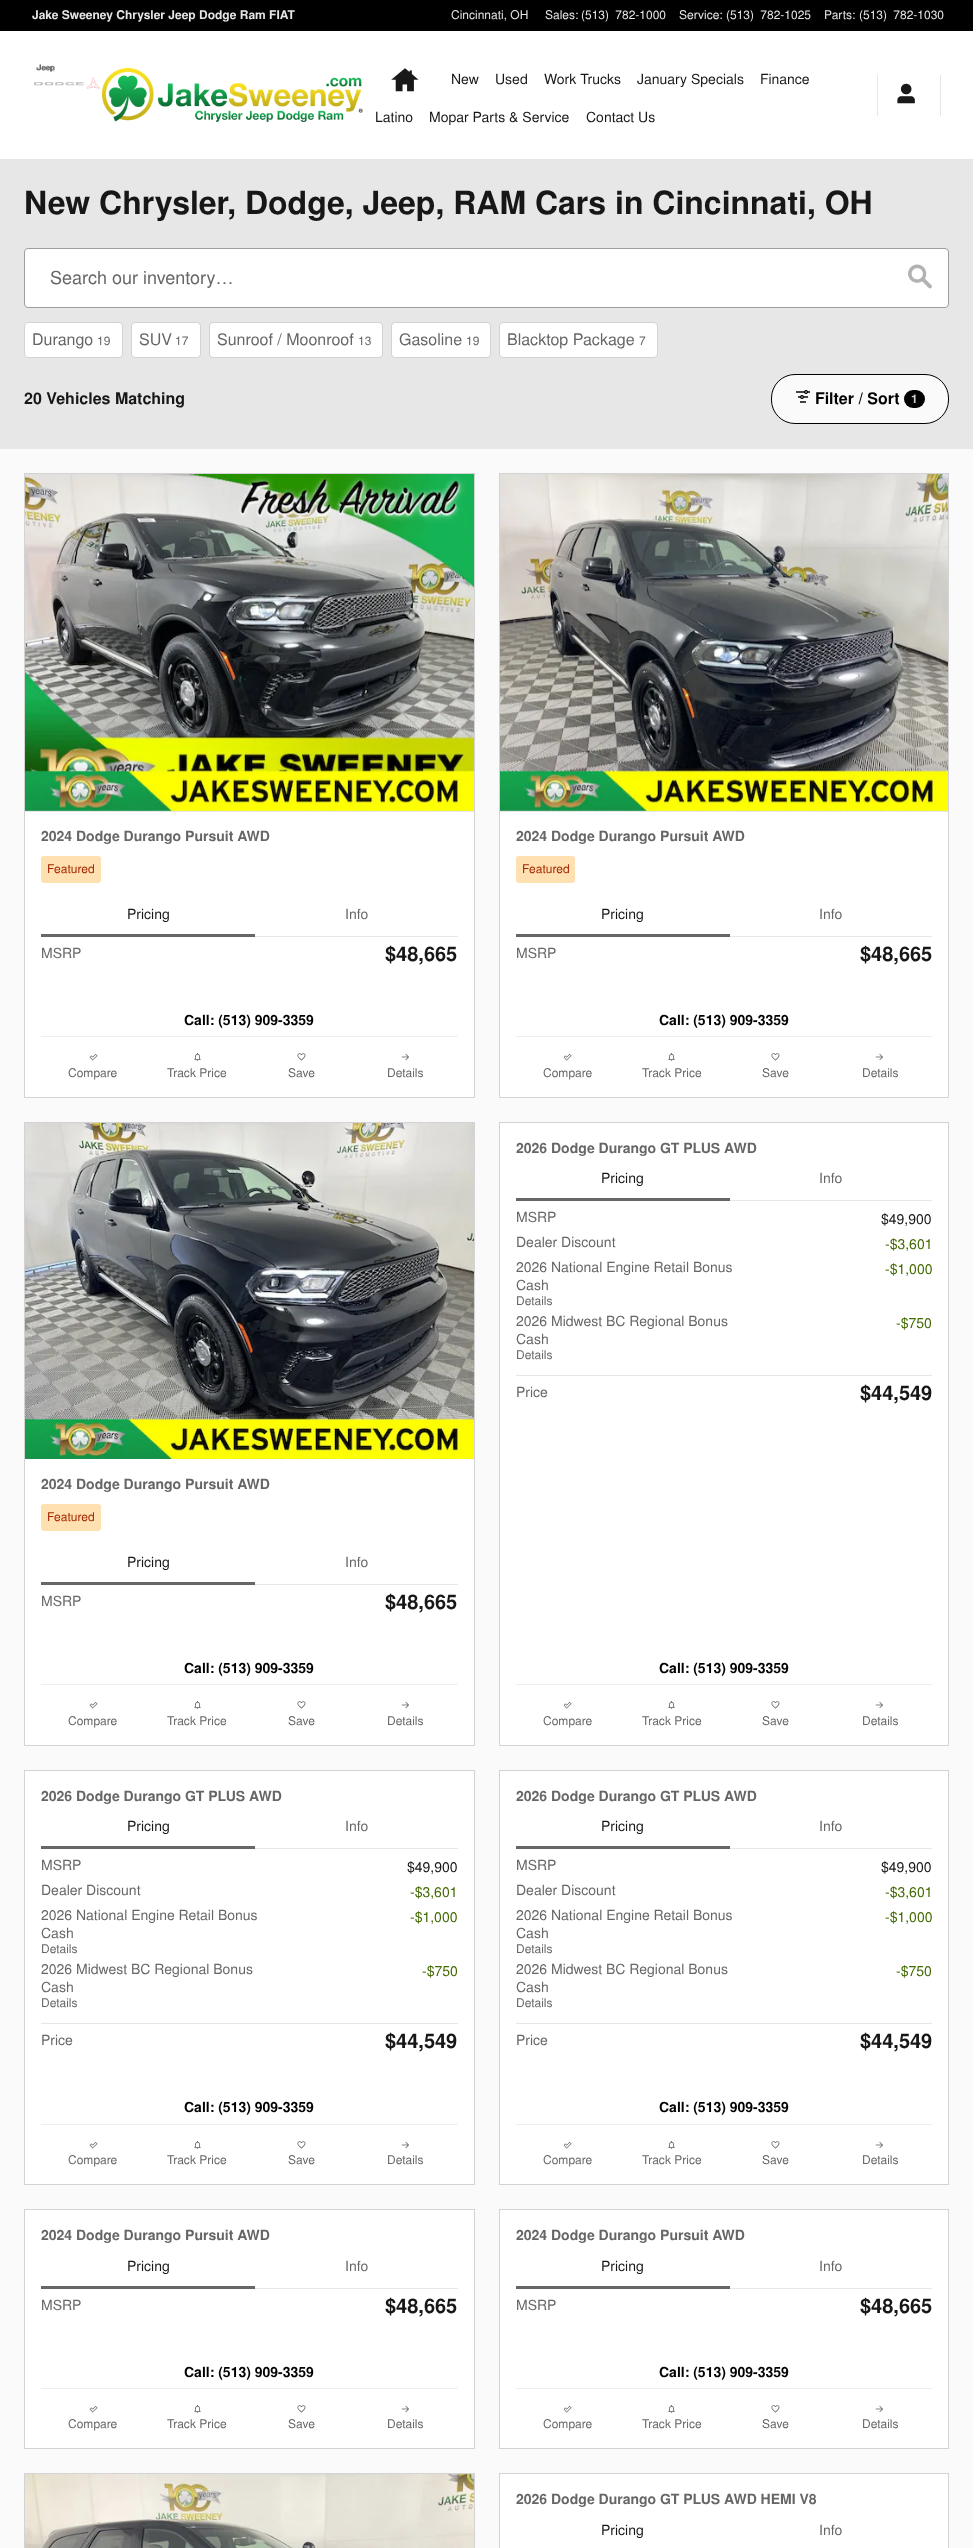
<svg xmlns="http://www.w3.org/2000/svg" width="973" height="2548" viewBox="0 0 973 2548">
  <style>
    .t1 { font: bold 12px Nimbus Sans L; fill: #e6e6e6; }
    .t2 { font: 12px Nimbus Sans L; fill: #e6e6e6; }
    .t3 { font: 14px Nimbus Sans L; fill: #171717; }
    .t4 { font: bold 32px Nimbus Sans L; fill: #171717; }
    .t5 { font: 18px Nimbus Sans L; fill: #666; }
    .t6 { font: 16px Nimbus Sans L; fill: #666; }
    .t7 { font: 12px Nimbus Sans L; fill: #666; }
    .t8 { font: bold 16px Nimbus Sans L; fill: #171717; }
    .t9 { font: bold 16px Nimbus Sans L; fill: #000; }
    .t10 { font: bold 12px Nimbus Sans L; fill: #ccc; }
    .t11 { font: bold 14px Nimbus Sans L; fill: #666; }
    .t12 { font: 12px Nimbus Sans L; fill: #a42801; }
    .t13 { font: 14px Nimbus Sans L; fill: #666; }
    .t14 { font: bold 20px Nimbus Sans L; fill: #171717; }
    .t15 { font: bold 14px Nimbus Sans L; fill: #000; }
    .t16 { font: 14px Nimbus Sans L; fill: #426a00; }
  </style>
  <rect width="100%" height="100%" fill="#fafafa"/>
  <rect x="0" y="31" width="973" height="128" fill="#fff"/>
  <rect x="0" y="159" width="973" height="1" fill="#e6e6e6"/>
  <rect x="0" y="0" width="973" height="31" fill="#000"/>
  <text x="32" y="19" class="t1">Jake Sweeney Chrysler Jeep Dodge Ram FIAT</text>
  <text x="451" y="19" class="t2">Cincinnati, OH</text>
  <text x="545" y="19" class="t2">Sales:</text>
  <text x="581" y="19" word-spacing="3" class="t2">(513) 782-1000</text>
  <text x="679" y="19" class="t2">Service:</text>
  <text x="726" y="19" word-spacing="3" class="t2">(513) 782-1025</text>
  <text x="824" y="19" class="t2">Parts:</text>
  <text x="859" y="19" word-spacing="3" class="t2">(513) 782-1030</text>
  <image x="35" y="64" width="21" height="8" href="images/1.png"/>
  <image x="34" y="77" width="66" height="12" href="images/2.png"/>
  <image x="102" y="68" width="261" height="54" href="images/3.png"/>
  <image x="391" y="68" width="28" height="24" href="images/4.png"/>
  <text x="451" y="84" class="t3">New</text>
  <text x="495" y="84" class="t3">Used</text>
  <text x="544" y="84" class="t3">Work Trucks</text>
  <text x="637" y="84" class="t3">January Specials</text>
  <text x="760" y="84" class="t3">Finance</text>
  <text x="375" y="122" class="t3">Latino</text>
  <text x="429" y="122" class="t3">Mopar Parts &amp; Service</text>
  <text x="586" y="122" class="t3">Contact Us</text>
  <rect x="877" y="75" width="1" height="41" fill="#e6e6e6"/>
  <image x="897" y="83" width="18" height="21" href="images/5.png"/>
  <rect x="940" y="75" width="1" height="41" fill="#e6e6e6"/>
  <rect x="0" y="160" width="973" height="289" fill="#e7e7e7"/>
  <text x="24" y="214" class="t4">New Chrysler, Dodge, Jeep, RAM Cars in Cincinnati, OH</text>
  <rect x="24.5" y="248.5" width="924" height="59" rx="3.5" fill="#fff" stroke="#9e9e9e"/>
  <text x="50" y="284" class="t5">Search our inventory…</text>
  <image x="908" y="264" width="24" height="25" href="images/6.png"/>
  <rect x="24.5" y="322.5" width="98" height="35" rx="3.5" fill="#fff" stroke="#d3d3d3"/>
  <text x="32" y="345" class="t6">Durango</text>
  <text x="97" y="345" class="t7">19</text>
  <rect x="131.5" y="322.5" width="69" height="35" rx="3.5" fill="#fff" stroke="#d3d3d3"/>
  <text x="139" y="345" class="t6">SUV</text>
  <text x="175" y="345" class="t7">17</text>
  <rect x="209.5" y="322.5" width="173" height="35" rx="3.5" fill="#fff" stroke="#d3d3d3"/>
  <text x="217" y="345" class="t6">Sunroof / Moonroof</text>
  <text x="358" y="345" class="t7">13</text>
  <rect x="391.5" y="322.5" width="99" height="35" rx="3.5" fill="#fff" stroke="#d3d3d3"/>
  <text x="399" y="345" class="t6">Gasoline</text>
  <text x="466" y="345" class="t7">19</text>
  <rect x="499.5" y="322.5" width="158" height="35" rx="3.5" fill="#fff" stroke="#d3d3d3"/>
  <text x="507" y="345" class="t6">Blacktop Package</text>
  <text x="639" y="345" class="t7">7</text>
  <text x="24" y="404" class="t8">20 Vehicles Matching</text>
  <rect x="771.5" y="374.5" width="177" height="49" rx="23.5" fill="#fafafa" stroke="#000"/>
  <image x="796" y="390" width="14" height="13" href="images/7.png"/>
  <text x="815" y="404" class="t9">Filter / Sort</text>
  <rect x="904" y="390" width="21" height="18" rx="9" fill="#000"/>
  <text x="911" y="403" class="t10">1</text>
  <rect x="25" y="810" width="449" height="287" fill="#fff"/>
  <rect x="24.5" y="473.5" width="450" height="624" fill="none" stroke="#d3d3d3"/>
  <rect x="25" y="811" width="449" height="1" fill="#e6e6e6"/>
  <image x="25" y="474" width="449" height="337" href="images/8.png"/>
  <text x="41" y="841" class="t11">2024 Dodge Durango Pursuit AWD</text>
  <rect x="41" y="856" width="60" height="27" rx="3" fill="#ffe0b1"/>
  <text x="47" y="873" class="t12">Featured</text>
  <rect x="255" y="936" width="203" height="1" fill="#e7e7e7"/>
  <rect x="41" y="934" width="214" height="3" fill="#666"/>
  <text x="127" y="919" class="t3">Pricing</text>
  <text x="345" y="919" class="t13">Info</text>
  <text x="41" y="958" class="t13">MSRP</text>
  <text x="385" y="961" class="t14">$48,665</text>
  <text x="184" y="1025" class="t15">Call: (513) 909-3359</text>
  <rect x="41" y="1036" width="417" height="1" fill="#eee"/>
  <image x="89" y="1054" width="9" height="7" href="images/9.png"/>
  <text x="68" y="1077" class="t7">Compare</text>
  <image x="194" y="1053" width="7" height="9" href="images/10.png"/>
  <text x="167" y="1077" class="t7">Track Price</text>
  <image x="297" y="1053" width="9" height="8" href="images/11.png"/>
  <text x="288" y="1077" class="t7">Save</text>
  <image x="401" y="1053" width="8" height="8" href="images/12.png"/>
  <text x="387" y="1077" class="t7">Details</text>
  <rect x="500" y="810" width="448" height="287" fill="#fff"/>
  <rect x="499.5" y="473.5" width="449" height="624" fill="none" stroke="#d3d3d3"/>
  <rect x="500" y="811" width="448" height="1" fill="#e6e6e6"/>
  <image x="500" y="474" width="448" height="337" href="images/13.png"/>
  <text x="516" y="841" class="t11">2024 Dodge Durango Pursuit AWD</text>
  <rect x="516" y="856" width="59" height="27" rx="3" fill="#ffe0b1"/>
  <text x="522" y="873" class="t12">Featured</text>
  <rect x="730" y="936" width="202" height="1" fill="#e7e7e7"/>
  <rect x="516" y="934" width="214" height="3" fill="#666"/>
  <text x="601" y="919" class="t3">Pricing</text>
  <text x="819" y="919" class="t13">Info</text>
  <text x="516" y="958" class="t13">MSRP</text>
  <text x="860" y="961" class="t14">$48,665</text>
  <text x="659" y="1025" class="t15">Call: (513) 909-3359</text>
  <rect x="516" y="1036" width="416" height="1" fill="#eee"/>
  <image x="563" y="1054" width="9" height="7" href="images/9.png"/>
  <text x="543" y="1077" class="t7">Compare</text>
  <image x="668" y="1053" width="7" height="9" href="images/10.png"/>
  <text x="642" y="1077" class="t7">Track Price</text>
  <image x="771" y="1053" width="9" height="8" href="images/11.png"/>
  <text x="762" y="1077" class="t7">Save</text>
  <image x="875" y="1053" width="8" height="8" href="images/12.png"/>
  <text x="862" y="1077" class="t7">Details</text>
  <rect x="25" y="1459" width="449" height="286" fill="#fff"/>
  <rect x="24.5" y="1122.5" width="450" height="623" fill="none" stroke="#d3d3d3"/>
  <image x="25" y="1123" width="449" height="336" href="images/14.png"/>
  <text x="41" y="1489" class="t11">2024 Dodge Durango Pursuit AWD</text>
  <rect x="41" y="1504" width="60" height="27" rx="3" fill="#ffe0b1"/>
  <text x="47" y="1521" class="t12">Featured</text>
  <rect x="255" y="1584" width="203" height="1" fill="#e7e7e7"/>
  <rect x="41" y="1582" width="214" height="3" fill="#666"/>
  <text x="127" y="1567" class="t3">Pricing</text>
  <text x="345" y="1567" class="t13">Info</text>
  <text x="41" y="1606" class="t13">MSRP</text>
  <text x="385" y="1609" class="t14">$48,665</text>
  <text x="184" y="1673" class="t15">Call: (513) 909-3359</text>
  <rect x="41" y="1684" width="417" height="1" fill="#eee"/>
  <image x="89" y="1702" width="9" height="7" href="images/9.png"/>
  <text x="68" y="1725" class="t7">Compare</text>
  <image x="194" y="1701" width="7" height="9" href="images/10.png"/>
  <text x="167" y="1725" class="t7">Track Price</text>
  <image x="297" y="1701" width="9" height="8" href="images/11.png"/>
  <text x="288" y="1725" class="t7">Save</text>
  <image x="401" y="1701" width="8" height="8" href="images/12.png"/>
  <text x="387" y="1725" class="t7">Details</text>
  <rect x="499.5" y="1122.5" width="449" height="623" fill="#fff" stroke="#d3d3d3"/>
  <text x="516" y="1153" class="t11">2026 Dodge Durango GT PLUS AWD</text>
  <rect x="730" y="1200" width="202" height="1" fill="#e7e7e7"/>
  <rect x="516" y="1198" width="214" height="3" fill="#666"/>
  <text x="601" y="1183" class="t3">Pricing</text>
  <text x="819" y="1183" class="t13">Info</text>
  <text x="516" y="1222" class="t13">MSRP</text>
  <text x="881" y="1224" class="t3">$49,900</text>
  <text x="516" y="1247" class="t13">Dealer Discount</text>
  <text x="885" y="1249" class="t16">-$3,601</text>
  <text x="516" y="1272" class="t13">2026 National Engine Retail Bonus</text>
  <text x="516" y="1290" class="t13">Cash</text>
  <text x="516" y="1305" class="t7">Details</text>
  <text x="885" y="1274" class="t16">-$1,000</text>
  <text x="516" y="1326" class="t13">2026 Midwest BC Regional Bonus</text>
  <text x="516" y="1344" class="t13">Cash</text>
  <text x="516" y="1359" class="t7">Details</text>
  <text x="896" y="1328" class="t16">-$750</text>
  <rect x="516" y="1375" width="416" height="1" fill="#e6e6e6"/>
  <text x="516" y="1397" class="t13">Price</text>
  <text x="860" y="1400" class="t14">$44,549</text>
  <text x="659" y="1673" class="t15">Call: (513) 909-3359</text>
  <rect x="516" y="1684" width="416" height="1" fill="#eee"/>
  <image x="563" y="1702" width="9" height="7" href="images/9.png"/>
  <text x="543" y="1725" class="t7">Compare</text>
  <image x="668" y="1701" width="7" height="9" href="images/10.png"/>
  <text x="642" y="1725" class="t7">Track Price</text>
  <image x="771" y="1701" width="9" height="8" href="images/11.png"/>
  <text x="762" y="1725" class="t7">Save</text>
  <image x="875" y="1701" width="8" height="8" href="images/12.png"/>
  <text x="862" y="1725" class="t7">Details</text>
  <rect x="24.5" y="1770.5" width="450" height="414" fill="#fff" stroke="#d3d3d3"/>
  <text x="41" y="1801" class="t11">2026 Dodge Durango GT PLUS AWD</text>
  <rect x="255" y="1848" width="203" height="1" fill="#e7e7e7"/>
  <rect x="41" y="1846" width="214" height="3" fill="#666"/>
  <text x="127" y="1831" class="t3">Pricing</text>
  <text x="345" y="1831" class="t13">Info</text>
  <text x="41" y="1870" class="t13">MSRP</text>
  <text x="407" y="1872" class="t3">$49,900</text>
  <text x="41" y="1895" class="t13">Dealer Discount</text>
  <text x="410" y="1897" class="t16">-$3,601</text>
  <text x="41" y="1920" class="t13">2026 National Engine Retail Bonus</text>
  <text x="41" y="1938" class="t13">Cash</text>
  <text x="41" y="1953" class="t7">Details</text>
  <text x="410" y="1922" class="t16">-$1,000</text>
  <text x="41" y="1974" class="t13">2026 Midwest BC Regional Bonus</text>
  <text x="41" y="1992" class="t13">Cash</text>
  <text x="41" y="2007" class="t7">Details</text>
  <text x="422" y="1976" class="t16">-$750</text>
  <rect x="41" y="2023" width="417" height="1" fill="#e6e6e6"/>
  <text x="41" y="2045" class="t13">Price</text>
  <text x="385" y="2048" class="t14">$44,549</text>
  <text x="184" y="2112" class="t15">Call: (513) 909-3359</text>
  <rect x="41" y="2124" width="417" height="1" fill="#eee"/>
  <image x="89" y="2142" width="9" height="7" href="images/9.png"/>
  <text x="68" y="2164" class="t7">Compare</text>
  <image x="194" y="2141" width="7" height="9" href="images/10.png"/>
  <text x="167" y="2164" class="t7">Track Price</text>
  <image x="297" y="2141" width="9" height="8" href="images/11.png"/>
  <text x="288" y="2164" class="t7">Save</text>
  <image x="401" y="2141" width="8" height="8" href="images/12.png"/>
  <text x="387" y="2164" class="t7">Details</text>
  <rect x="499.5" y="1770.5" width="449" height="414" fill="#fff" stroke="#d3d3d3"/>
  <text x="516" y="1801" class="t11">2026 Dodge Durango GT PLUS AWD</text>
  <rect x="730" y="1848" width="202" height="1" fill="#e7e7e7"/>
  <rect x="516" y="1846" width="214" height="3" fill="#666"/>
  <text x="601" y="1831" class="t3">Pricing</text>
  <text x="819" y="1831" class="t13">Info</text>
  <text x="516" y="1870" class="t13">MSRP</text>
  <text x="881" y="1872" class="t3">$49,900</text>
  <text x="516" y="1895" class="t13">Dealer Discount</text>
  <text x="885" y="1897" class="t16">-$3,601</text>
  <text x="516" y="1920" class="t13">2026 National Engine Retail Bonus</text>
  <text x="516" y="1938" class="t13">Cash</text>
  <text x="516" y="1953" class="t7">Details</text>
  <text x="885" y="1922" class="t16">-$1,000</text>
  <text x="516" y="1974" class="t13">2026 Midwest BC Regional Bonus</text>
  <text x="516" y="1992" class="t13">Cash</text>
  <text x="516" y="2007" class="t7">Details</text>
  <text x="896" y="1976" class="t16">-$750</text>
  <rect x="516" y="2023" width="416" height="1" fill="#e6e6e6"/>
  <text x="516" y="2045" class="t13">Price</text>
  <text x="860" y="2048" class="t14">$44,549</text>
  <text x="659" y="2112" class="t15">Call: (513) 909-3359</text>
  <rect x="516" y="2124" width="416" height="1" fill="#eee"/>
  <image x="563" y="2142" width="9" height="7" href="images/9.png"/>
  <text x="543" y="2164" class="t7">Compare</text>
  <image x="668" y="2141" width="7" height="9" href="images/10.png"/>
  <text x="642" y="2164" class="t7">Track Price</text>
  <image x="771" y="2141" width="9" height="8" href="images/11.png"/>
  <text x="762" y="2164" class="t7">Save</text>
  <image x="875" y="2141" width="8" height="8" href="images/12.png"/>
  <text x="862" y="2164" class="t7">Details</text>
  <rect x="24.5" y="2209.5" width="450" height="239" fill="#fff" stroke="#d3d3d3"/>
  <text x="41" y="2240" class="t11">2024 Dodge Durango Pursuit AWD</text>
  <rect x="255" y="2288" width="203" height="1" fill="#e7e7e7"/>
  <rect x="41" y="2286" width="214" height="3" fill="#666"/>
  <text x="127" y="2271" class="t3">Pricing</text>
  <text x="345" y="2271" class="t13">Info</text>
  <text x="41" y="2310" class="t13">MSRP</text>
  <text x="385" y="2313" class="t14">$48,665</text>
  <text x="184" y="2377" class="t15">Call: (513) 909-3359</text>
  <rect x="41" y="2388" width="417" height="1" fill="#eee"/>
  <image x="89" y="2406" width="9" height="7" href="images/9.png"/>
  <text x="68" y="2428" class="t7">Compare</text>
  <image x="194" y="2405" width="7" height="9" href="images/10.png"/>
  <text x="167" y="2428" class="t7">Track Price</text>
  <image x="297" y="2405" width="9" height="8" href="images/11.png"/>
  <text x="288" y="2428" class="t7">Save</text>
  <image x="401" y="2405" width="8" height="8" href="images/12.png"/>
  <text x="387" y="2428" class="t7">Details</text>
  <rect x="499.5" y="2209.5" width="449" height="239" fill="#fff" stroke="#d3d3d3"/>
  <text x="516" y="2240" class="t11">2024 Dodge Durango Pursuit AWD</text>
  <rect x="730" y="2288" width="202" height="1" fill="#e7e7e7"/>
  <rect x="516" y="2286" width="214" height="3" fill="#666"/>
  <text x="601" y="2271" class="t3">Pricing</text>
  <text x="819" y="2271" class="t13">Info</text>
  <text x="516" y="2310" class="t13">MSRP</text>
  <text x="860" y="2313" class="t14">$48,665</text>
  <text x="659" y="2377" class="t15">Call: (513) 909-3359</text>
  <rect x="516" y="2388" width="416" height="1" fill="#eee"/>
  <image x="563" y="2406" width="9" height="7" href="images/9.png"/>
  <text x="543" y="2428" class="t7">Compare</text>
  <image x="668" y="2405" width="7" height="9" href="images/10.png"/>
  <text x="642" y="2428" class="t7">Track Price</text>
  <image x="771" y="2405" width="9" height="8" href="images/11.png"/>
  <text x="762" y="2428" class="t7">Save</text>
  <image x="875" y="2405" width="8" height="8" href="images/12.png"/>
  <text x="862" y="2428" class="t7">Details</text>
  <rect x="24.5" y="2473.5" width="450" height="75" fill="none" stroke="#d3d3d3"/>
  <image x="25" y="2474" width="449" height="74" href="images/15.png"/>
  <rect x="499.5" y="2473.5" width="449" height="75" fill="#fff" stroke="#d3d3d3"/>
  <text x="516" y="2504" class="t11">2026 Dodge Durango GT PLUS AWD HEMI V8</text>
  <text x="601" y="2535" class="t3">Pricing</text>
  <text x="819" y="2535" class="t13">Info</text>
</svg>
